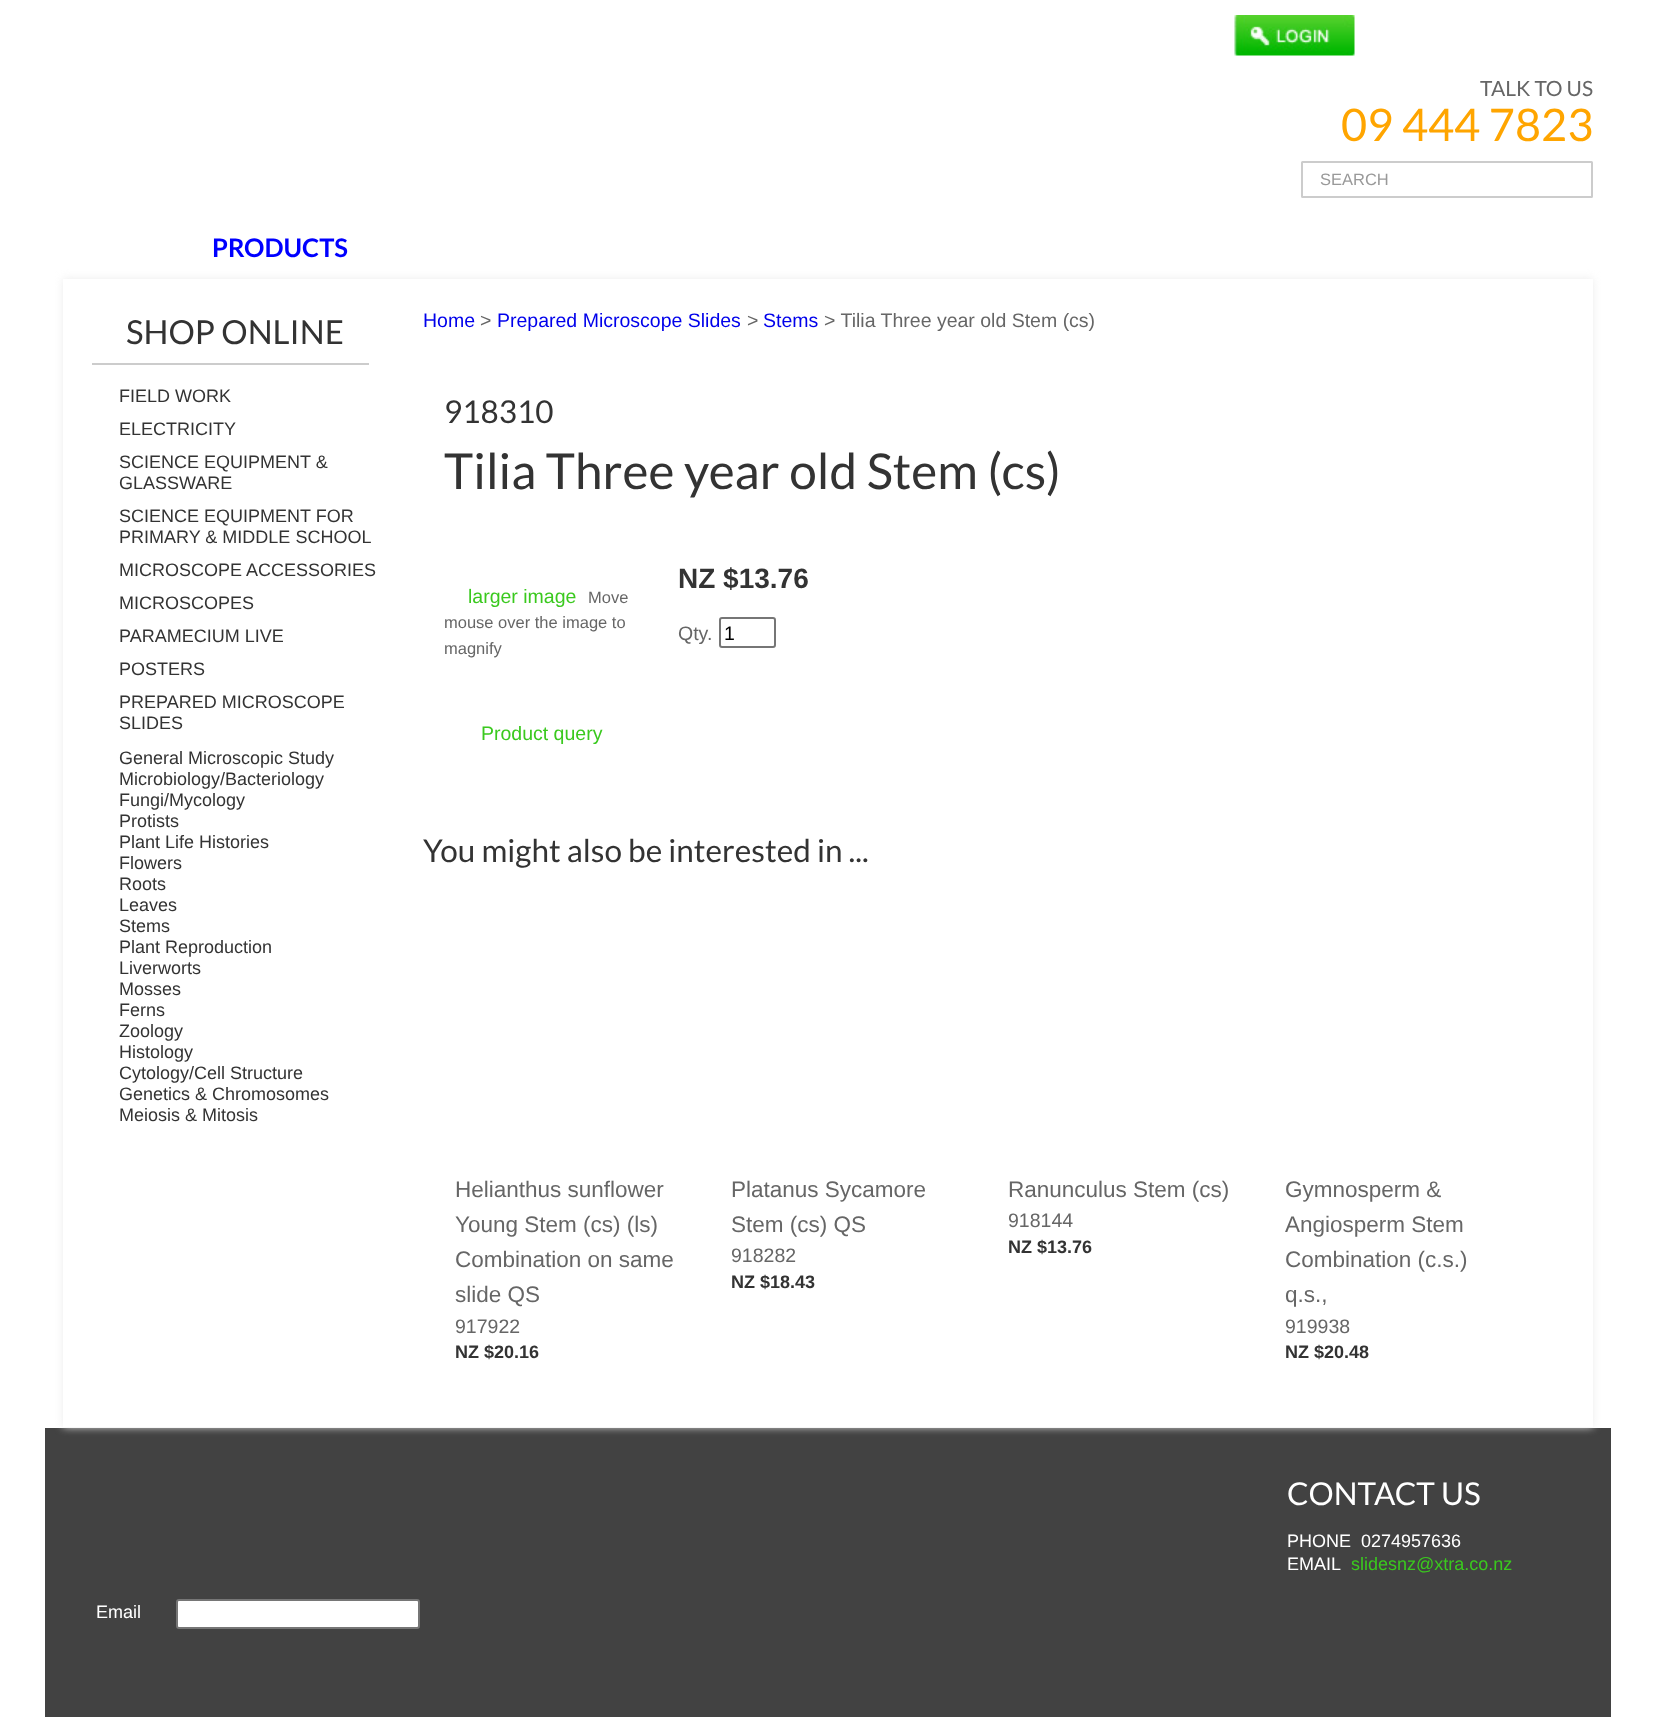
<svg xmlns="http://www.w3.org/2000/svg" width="1656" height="1717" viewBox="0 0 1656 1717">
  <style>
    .t1 { font: 21px Lato; fill: #666; }
    .t2 { font: 45px Lato; fill: #ffa500; }
    .t3 { font: 16.5px Liberation Sans; fill: #999; }
    .t4 { font: bold 25.5px Lato; fill: #00f; }
    .t5 { font: 33px Lato; fill: #333; }
    .t6 { font: 18px Liberation Sans; fill: #333; }
    .t7 { font: 19.5px Liberation Sans; fill: #0000eb; }
    .t8 { font: 19.5px Liberation Sans; fill: #666; }
    .t9 { font: 31.5px Lato; fill: #333; }
    .t10 { font: 49.5px Lato; fill: #333; }
    .t11 { font: 19.5px Liberation Sans; fill: #3ac91e; }
    .t12 { font: 16.5px Liberation Sans; fill: #666; }
    .t13 { font: bold 28px Liberation Sans; fill: #333; }
    .t14 { font: 19.5px Liberation Sans; fill: #000; }
    .t15 { font: 22.5px Liberation Sans; fill: #666; }
    .t16 { font: bold 18px Liberation Sans; fill: #333; }
    .t17 { font: 31.5px Lato; fill: #fff; }
    .t18 { font: 18px Liberation Sans; fill: #fff; }
    .t19 { font: 18px Liberation Sans; fill: #3ac91e; }
  </style>
  <defs>
    <clipPath id="clip1"><path d="M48 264H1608V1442H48ZM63 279H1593V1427H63Z" clip-rule="evenodd"/></clipPath>
  </defs>
  <rect width="100%" height="100%" fill="#fff"/>
  <image x="1234" y="15" width="121" height="41" href="images/1.png"/>
  <text x="1480" y="96" class="t1">TALK TO US</text>
  <text x="1341" y="141" class="t2">09 444 7823</text>
  <rect x="1302" y="162" width="290" height="35" rx="0.5" fill="none" stroke="#ccc" stroke-width="2"/>
  <text x="1320" y="185" class="t3">SEARCH</text>
  <text x="212" y="257" class="t4">PRODUCTS</text>
  <rect x="45" y="1428" width="1566" height="289" fill="#424242"/>
  <g clip-path="url(#clip1)">
    <rect x="63" y="279" width="1530" height="1148" fill="#ebebeb" filter="blur(4.5px)"/>
  </g>
  <rect x="92" y="363" width="277" height="2" fill="#ccc"/>
  <text x="126" y="344" class="t5">SHOP ONLINE</text>
  <text x="119" y="402" class="t6">FIELD WORK</text>
  <text x="119" y="435" class="t6">ELECTRICITY</text>
  <text x="119" y="468" class="t6">SCIENCE EQUIPMENT &amp;</text>
  <text x="119" y="489" class="t6">GLASSWARE</text>
  <text x="119" y="522" class="t6">SCIENCE EQUIPMENT FOR</text>
  <text x="119" y="543" class="t6">PRIMARY &amp; MIDDLE SCHOOL</text>
  <text x="119" y="576" class="t6">MICROSCOPE ACCESSORIES</text>
  <text x="119" y="609" class="t6">MICROSCOPES</text>
  <text x="119" y="642" class="t6">PARAMECIUM LIVE</text>
  <text x="119" y="675" class="t6">POSTERS</text>
  <text x="119" y="708" class="t6">PREPARED MICROSCOPE</text>
  <text x="119" y="729" class="t6">SLIDES</text>
  <text x="119" y="764" class="t6">General Microscopic Study</text>
  <text x="119" y="785" class="t6">Microbiology/Bacteriology</text>
  <text x="119" y="806" class="t6">Fungi/Mycology</text>
  <text x="119" y="827" class="t6">Protists</text>
  <text x="119" y="848" class="t6">Plant Life Histories</text>
  <text x="119" y="869" class="t6">Flowers</text>
  <text x="119" y="890" class="t6">Roots</text>
  <text x="119" y="911" class="t6">Leaves</text>
  <text x="119" y="932" class="t6">Stems</text>
  <text x="119" y="953" class="t6">Plant Reproduction</text>
  <text x="119" y="974" class="t6">Liverworts</text>
  <text x="119" y="995" class="t6">Mosses</text>
  <text x="119" y="1016" class="t6">Ferns</text>
  <text x="119" y="1037" class="t6">Zoology</text>
  <text x="119" y="1058" class="t6">Histology</text>
  <text x="119" y="1079" class="t6">Cytology/Cell Structure</text>
  <text x="119" y="1100" class="t6">Genetics &amp; Chromosomes</text>
  <text x="119" y="1121" class="t6">Meiosis &amp; Mitosis</text>
  <text x="423" y="327" class="t7">Home</text>
  <text x="480" y="327" class="t8">&gt;</text>
  <text x="497" y="327" class="t7">Prepared Microscope Slides</text>
  <text x="747" y="327" class="t8">&gt;</text>
  <text x="763" y="327" class="t7">Stems</text>
  <text x="824" y="327" class="t8">&gt; Tilia Three year old Stem (cs)</text>
  <text x="444" y="423" class="t9">918310</text>
  <text x="444" y="489" class="t10">Tilia Three year old Stem (cs)</text>
  <text x="468" y="603" class="t11">larger image</text>
  <text x="588" y="603" class="t12">Move</text>
  <text x="444" y="628" class="t12">mouse over the image to</text>
  <text x="444" y="654" class="t12">magnify</text>
  <text x="481" y="740" class="t11">Product query</text>
  <text x="678" y="588" class="t13">NZ $13.76</text>
  <text x="678" y="640" class="t8">Qty.</text>
  <rect x="720" y="618" width="55" height="29" rx="2" fill="none" stroke="#767676" stroke-width="2"/>
  <text x="724" y="640" class="t14">1</text>
  <text x="423" y="862" class="t9">You might also be interested in ...</text>
  <text x="455" y="1197" class="t15">Helianthus sunflower</text>
  <text x="455" y="1232" class="t15">Young Stem (cs) (ls)</text>
  <text x="455" y="1267" class="t15">Combination on same</text>
  <text x="455" y="1302" class="t15">slide QS</text>
  <text x="455" y="1333" class="t8">917922</text>
  <text x="455" y="1358" class="t16">NZ $20.16</text>
  <text x="731" y="1197" class="t15">Platanus Sycamore</text>
  <text x="731" y="1232" class="t15">Stem (cs) QS</text>
  <text x="731" y="1262" class="t8">918282</text>
  <text x="731" y="1288" class="t16">NZ $18.43</text>
  <text x="1008" y="1197" class="t15">Ranunculus Stem (cs)</text>
  <text x="1008" y="1227" class="t8">918144</text>
  <text x="1008" y="1253" class="t16">NZ $13.76</text>
  <text x="1285" y="1197" class="t15">Gymnosperm &amp;</text>
  <text x="1285" y="1232" class="t15">Angiosperm Stem</text>
  <text x="1285" y="1267" class="t15">Combination (c.s.)</text>
  <text x="1285" y="1302" class="t15">q.s.,</text>
  <text x="1285" y="1333" class="t8">919938</text>
  <text x="1285" y="1358" class="t16">NZ $20.48</text>
  <text x="1287" y="1505" class="t17">CONTACT US</text>
  <text x="1287" y="1547" class="t18" xml:space="preserve">PHONE  0274957636</text>
  <text x="1287" y="1570" class="t18">EMAIL</text>
  <text x="1351" y="1570" class="t19">slidesnz@xtra.co.nz</text>
  <text x="96" y="1618" class="t18">Email</text>
  <rect x="177" y="1600" width="242" height="28" rx="2" fill="#fff" stroke="#767676" stroke-width="2"/>
</svg>
